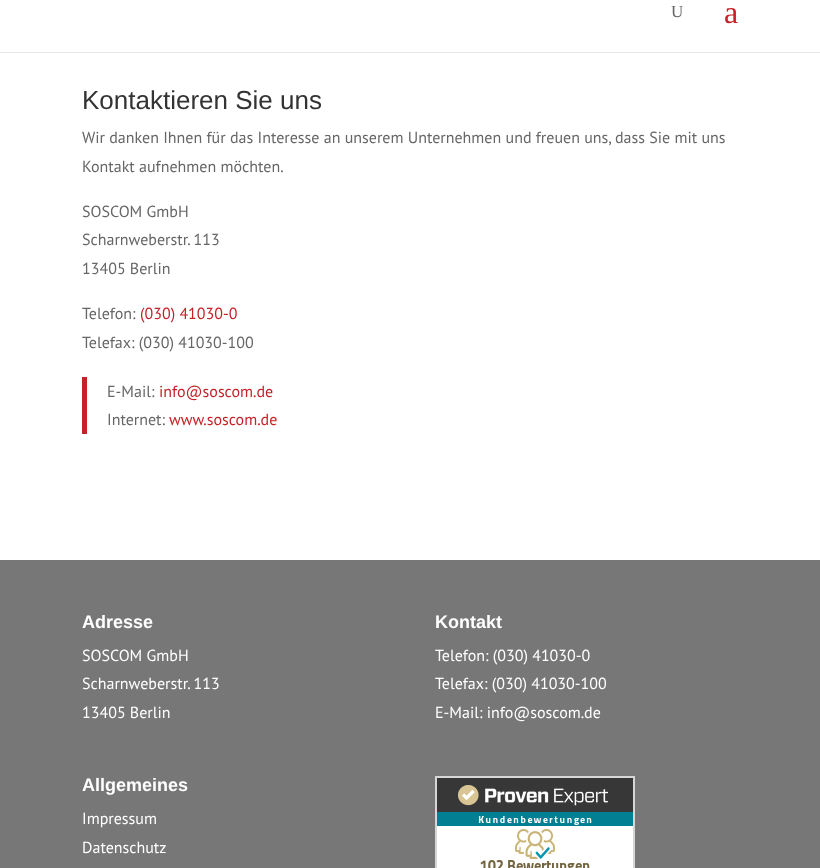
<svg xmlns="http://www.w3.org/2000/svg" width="820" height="868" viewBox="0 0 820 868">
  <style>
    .t1 { font: 17px Liberation Serif; fill: #666; }
    .t2 { font: 32px Liberation Serif; fill: #c52228; }
    .t3 { font: 26px Liberation Sans; fill: #333; }
    .t4 { font: 16px PT Sans; fill: #666; }
    .t5 { font: 16px PT Sans; fill: #c52228; }
    .t6 { font: bold 18px Liberation Sans; fill: #fff; }
    .t7 { font: 16px PT Sans; fill: #fff; }
  </style>
  <rect width="100%" height="100%" fill="#777"/>
  <rect x="0" y="52" width="820" height="1" fill="#e6e6e6"/>
  <rect x="0" y="0" width="820" height="52" fill="#fff"/>
  <text x="671" y="17" class="t1">U</text>
  <text x="724" y="23" class="t2">a</text>
  <rect x="0" y="53" width="820" height="507" fill="#fff"/>
  <text x="82" y="109" class="t3">Kontaktieren Sie uns</text>
  <text x="82" y="143" class="t4">Wir danken Ihnen für das Interesse an unserem Unternehmen und freuen uns, dass Sie mit uns</text>
  <text x="82" y="172" class="t4">Kontakt aufnehmen möchten.</text>
  <text x="82" y="217" class="t4">SOSCOM GmbH</text>
  <text x="82" y="245" class="t4">Scharnweberstr. 113</text>
  <text x="82" y="274" class="t4">13405 Berlin</text>
  <text x="82" y="319" class="t4">Telefon:</text>
  <text x="140" y="319" class="t5">(030) 41030-0</text>
  <text x="82" y="348" class="t4">Telefax: (030) 41030-100</text>
  <rect x="82" y="377" width="5" height="57" fill="#c52228"/>
  <text x="107" y="397" class="t4">E-Mail:</text>
  <text x="159" y="397" class="t5">info@soscom.de</text>
  <text x="107" y="425" class="t4">Internet:</text>
  <text x="169" y="425" class="t5">www.soscom.de</text>
  <text x="82" y="628" class="t6">Adresse</text>
  <text x="82" y="661" class="t7">SOSCOM GmbH</text>
  <text x="82" y="689" class="t7">Scharnweberstr. 113</text>
  <text x="82" y="718" class="t7">13405 Berlin</text>
  <text x="435" y="628" class="t6">Kontakt</text>
  <text x="435" y="661" class="t7">Telefon: (030) 41030-0</text>
  <text x="435" y="689" class="t7">Telefax: (030) 41030-100</text>
  <text x="435" y="718" class="t7">E-Mail: info@soscom.de</text>
  <text x="82" y="791" class="t6">Allgemeines</text>
  <text x="82" y="824" class="t7">Impressum</text>
  <text x="82" y="853" class="t7">Datenschutz</text>
  <image x="435" y="776" width="200" height="92" href="images/1.png"/>
</svg>
